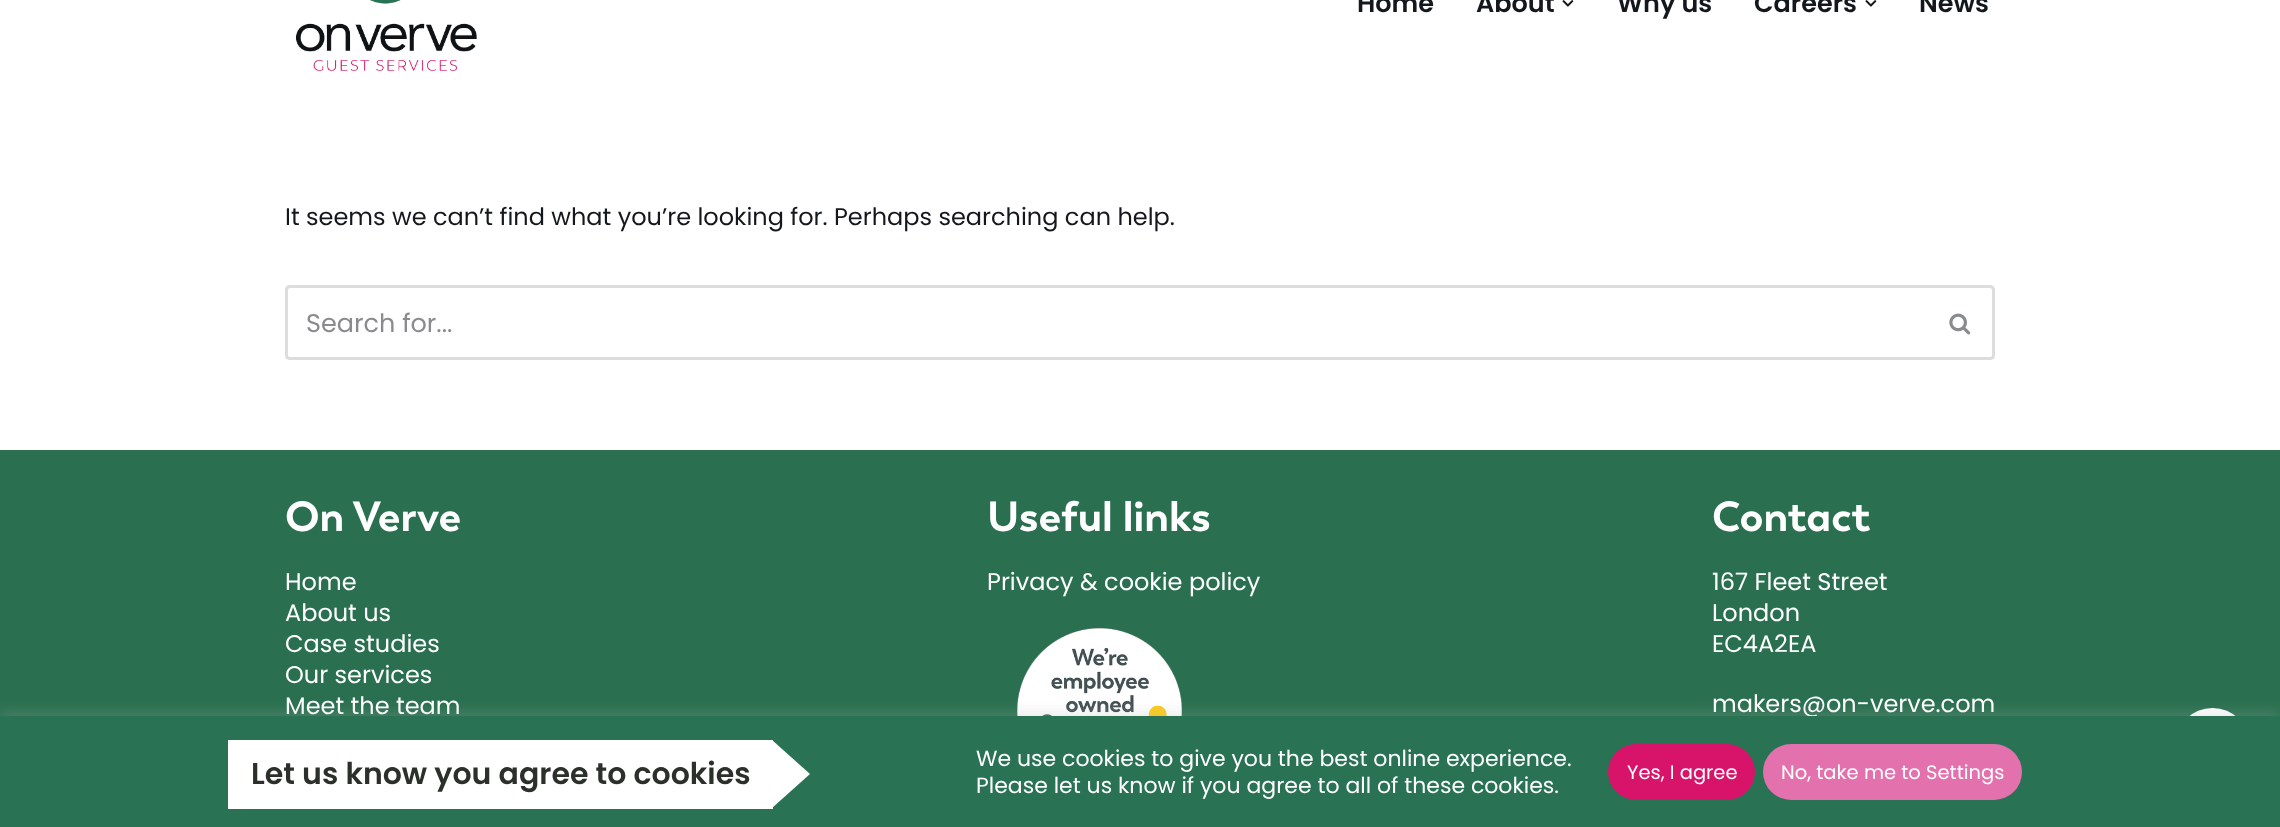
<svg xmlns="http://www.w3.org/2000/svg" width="2280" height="827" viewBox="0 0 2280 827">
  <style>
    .t1 { font: 600 25.5px Poppins; fill: #14171c; }
    .t2 { font: 24px Poppins; fill: #14171c; }
    .t3 { font: 25.5px Poppins; fill: #8a8b8e; }
    .t4 { font: bold 42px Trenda; fill: #fff; }
    .t5 { font: 24px Poppins; fill: #fff; }
    .t6 { font: 600 30px Poppins; fill: #2c302b; }
    .t7 { font: 22px Poppins; fill: #fff; }
    .t8 { font: 19.5px Poppins; fill: #fff; }
  </style>
  <rect width="100%" height="100%" fill="#fff"/>
  <image x="295" y="0" width="182" height="71" href="images/1.png"/>
  <text x="1357" y="12" class="t1">Home</text>
  <text x="1476" y="12" class="t1">About</text>
  <image x="1562" y="0" width="12" height="7" href="images/2.png"/>
  <text x="1617" y="12" class="t1">Why us</text>
  <text x="1754" y="12" class="t1">Careers</text>
  <image x="1865" y="0" width="12" height="7" href="images/2.png"/>
  <text x="1919" y="12" class="t1">News</text>
  <text x="285" y="225" class="t2">It seems we can’t find what you’re looking for. Perhaps searching can help.</text>
  <path d="M290 285H1928V360H290C287 360 285 358 285 356V290C285 287 287 285 290 285ZM290 288H1928V357H290C289 357 288 356 288 356V290C288 289 289 288 290 288Z" fill="#ddd" fill-rule="evenodd"/>
  <text x="306" y="332" class="t3">Search for...</text>
  <path d="M1928 285H1990C1993 285 1995 287 1995 290V356C1995 358 1993 360 1990 360H1928ZM1928 288H1990C1991 288 1992 289 1992 290V356C1992 356 1991 357 1990 357H1928Z" fill="#ddd" fill-rule="evenodd"/>
  <image x="1949" y="313" width="22" height="22" href="images/3.png"/>
  <rect x="0" y="450" width="2280" height="266" fill="#2a7050"/>
  <text x="285" y="531" class="t4">On Verve</text>
  <text x="285" y="590" class="t5">Home</text>
  <text x="285" y="621" class="t5">About us</text>
  <text x="285" y="652" class="t5">Case studies</text>
  <text x="285" y="683" class="t5">Our services</text>
  <text x="285" y="714" class="t5">Meet the team</text>
  <text x="987" y="531" class="t4">Useful links</text>
  <text x="987" y="590" class="t5">Privacy &amp; cookie policy</text>
  <image x="1017" y="628" width="165" height="88" href="images/4.png"/>
  <text x="1712" y="531" class="t4">Contact</text>
  <text x="1712" y="590" class="t5">167 Fleet Street</text>
  <text x="1712" y="621" class="t5">London</text>
  <text x="1712" y="652" class="t5">EC4A2EA</text>
  <text x="1712" y="712" class="t5">makers@on-verve.com</text>
  <circle cx="2212.5" cy="745.5" r="37.5" fill="#fff"/>
  <rect x="0" y="714" width="2280" height="113" fill="#acabab4d" filter="blur(7.5px)"/>
  <rect x="0" y="716" width="2280" height="111" fill="#297354"/>
  <rect x="228" y="740" width="545" height="69" fill="#fff"/>
  <text x="251" y="784" class="t6">Let us know you agree to cookies</text>
  <path d="M772 808V740L810 774Z" fill="#fff"/>
  <text x="976" y="766" class="t7">We use cookies to give you the best online experience.</text>
  <text x="976" y="793" class="t7">Please let us know if you agree to all of these cookies.</text>
  <rect x="1608" y="744" width="147" height="56" rx="28" fill="#d8146a"/>
  <text x="1627" y="779" class="t8">Yes, I agree</text>
  <rect x="1763" y="744" width="259" height="56" rx="28" fill="#e371ad"/>
  <text x="1781" y="779" class="t8">No, take me to Settings</text>
</svg>
